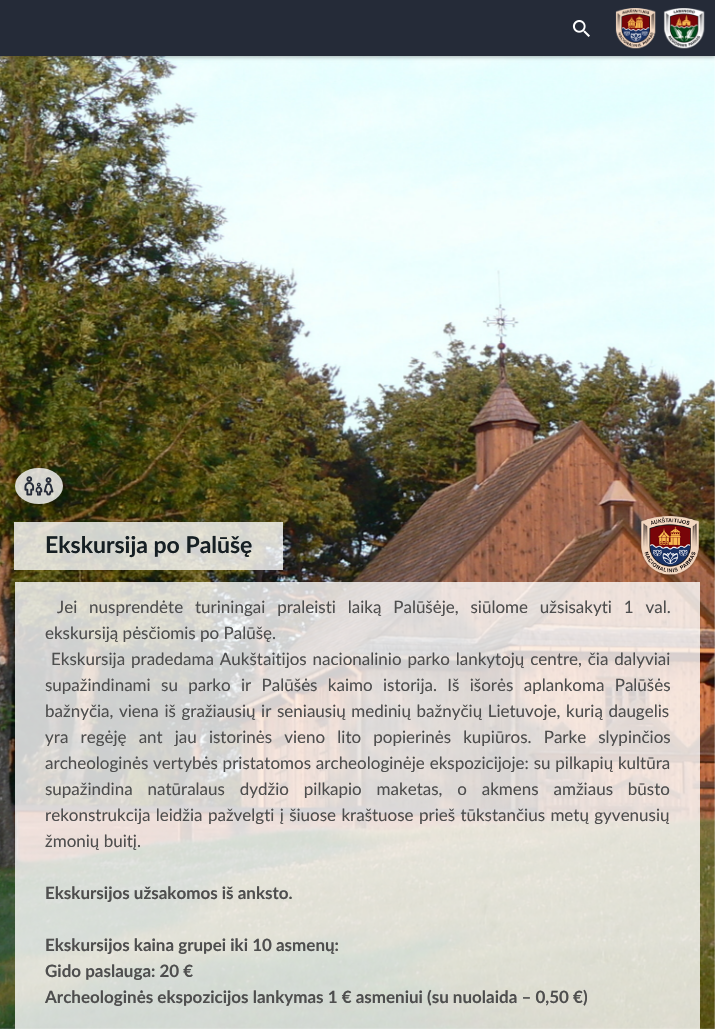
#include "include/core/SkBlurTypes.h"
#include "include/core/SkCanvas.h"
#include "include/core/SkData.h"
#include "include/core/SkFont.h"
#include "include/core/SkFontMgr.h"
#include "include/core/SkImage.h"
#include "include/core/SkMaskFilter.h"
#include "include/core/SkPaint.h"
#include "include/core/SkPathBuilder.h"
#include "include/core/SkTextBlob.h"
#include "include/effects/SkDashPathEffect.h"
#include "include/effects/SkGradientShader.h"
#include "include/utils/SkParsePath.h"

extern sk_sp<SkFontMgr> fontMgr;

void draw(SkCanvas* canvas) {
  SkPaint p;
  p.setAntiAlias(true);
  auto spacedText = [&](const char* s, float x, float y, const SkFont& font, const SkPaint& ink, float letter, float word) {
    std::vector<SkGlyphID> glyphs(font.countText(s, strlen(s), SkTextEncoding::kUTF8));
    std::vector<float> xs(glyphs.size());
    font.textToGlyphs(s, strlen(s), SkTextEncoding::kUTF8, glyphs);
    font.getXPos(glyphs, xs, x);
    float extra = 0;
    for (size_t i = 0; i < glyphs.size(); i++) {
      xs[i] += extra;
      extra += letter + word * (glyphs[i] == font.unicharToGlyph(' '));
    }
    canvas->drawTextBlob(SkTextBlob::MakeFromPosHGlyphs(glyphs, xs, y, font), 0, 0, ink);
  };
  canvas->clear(SK_ColorWHITE);
  canvas->drawImageRect(SkImages::DeferredFromEncodedData(SkData::MakeFromFileName("images/3.png")), SkRect::MakeLTRB(0, 56, 715, 1029), SkSamplingOptions());
  p.setColor(SkColorSetARGB(77, 0, 0, 0));
  p.setMaskFilter(SkMaskFilter::MakeBlur(kNormal_SkBlurStyle, 2));
  canvas->drawRect(SkRect::MakeLTRB(0, 1, 715, 57), p);
  p.setMaskFilter(nullptr);
  p.setColor(SkColorSetRGB(37, 43, 56));
  canvas->drawRect(SkRect::MakeLTRB(0, 0, 715, 56), p);
  canvas->drawImageRect(SkImages::DeferredFromEncodedData(SkData::MakeFromFileName("images/1.png")), SkRect::MakeLTRB(572, 20, 590, 37), SkSamplingOptions());
  canvas->drawImageRect(SkImages::DeferredFromEncodedData(SkData::MakeFromFileName("images/2.png")), SkRect::MakeLTRB(615, 8, 705, 49), SkSamplingOptions());
  p.setColor(SkColorSetARGB(204, 255, 255, 255));
  canvas->drawOval(SkRect::MakeLTRB(15, 468, 63, 504), p);
  canvas->drawImageRect(SkImages::DeferredFromEncodedData(SkData::MakeFromFileName("images/4.png")), SkRect::MakeLTRB(24, 476, 54, 496), SkSamplingOptions());
  canvas->drawRect(SkRect::MakeLTRB(14, 522, 45, 570), p);
  canvas->drawRect(SkRect::MakeLTRB(252, 522, 283, 570), p);
  canvas->drawRect(SkRect::MakeLTRB(45, 522, 252, 570), p);
  canvas->drawImageRect(SkImages::DeferredFromEncodedData(SkData::MakeFromFileName("images/5.png")), SkRect::MakeLTRB(641, 516, 699, 576), SkSamplingOptions());
  canvas->drawRect(SkRect::MakeLTRB(15, 582, 700, 1029), p);
  SkFont font1(fontMgr->matchFamilyStyle("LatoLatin", SkFontStyle::Bold()), 23);
  font1.setSubpixel(true);
  p.setColor(SkColorSetRGB(22, 31, 35));
  canvas->drawString("Ekskursija po Palūšę", 45, 553, font1, p);
  SkFont font2(fontMgr->matchFamilyStyle("LatoLatin", SkFontStyle::Normal()), 17);
  font2.setSubpixel(true);
  p.setColor(SkColorSetRGB(78, 78, 78));
  spacedText("Jei nusprendėte turiningai praleisti laiką Palūšėje, siūlome užsisakyti 1 val.", 57, 613, font2, p, 0, 7.5f);
  canvas->drawString("ekskursiją pėsčiomis po Palūšę.", 45, 639, font2, p);
  spacedText("Ekskursija pradedama Aukštaitijos nacionalinio parko lankytojų centre, čia dalyviai", 51, 665, font2, p, 0, 1.5f);
  spacedText("supažindinami su parko ir Palūšės kaimo istorija. Iš išorės aplankoma Palūšės", 45, 691, font2, p, 0, 6);
  spacedText("bažnyčia, viena iš gražiausių ir seniausių medinių bažnyčių Lietuvoje, kurią daugelis", 45, 717, font2, p, 0, 1.25f);
  spacedText("yra regėję ant jau istorinės vieno lito popierinės kupiūros. Parke slypinčios", 45, 743, font2, p, 0, 7.75f);
  spacedText("archeologinės vertybės pristatomos archeologinėje ekspozicijoje: su pilkapių kultūra", 45, 769, font2, p, 0, 0.5f);
  spacedText("supažindina natūralaus dydžio pilkapio maketas, o akmens amžiaus būsto", 45, 795, font2, p, 0, 10.5f);
  spacedText("rekonstrukcija leidžia pažvelgti į šiuose kraštuose prieš tūkstančius metų gyvenusių", 45, 821, font2, p, 0, 1);
  canvas->drawString("žmonių buitį.", 45, 847, font2, p);
  SkFont font3(fontMgr->matchFamilyStyle("LatoLatin", SkFontStyle::Bold()), 17);
  font3.setSubpixel(true);
  canvas->drawString("Ekskursijos užsakomos iš anksto.", 45, 899, font3, p);
  canvas->drawString("Ekskursijos kaina grupei iki 10 asmenų:", 45, 951, font3, p);
  canvas->drawString("Gido paslauga: 20 €", 45, 977, font3, p);
  canvas->drawString("Archeologinės ekspozicijos lankymas 1 € asmeniui (su nuolaida – 0,50 €)", 45, 1003, font3, p);
}
